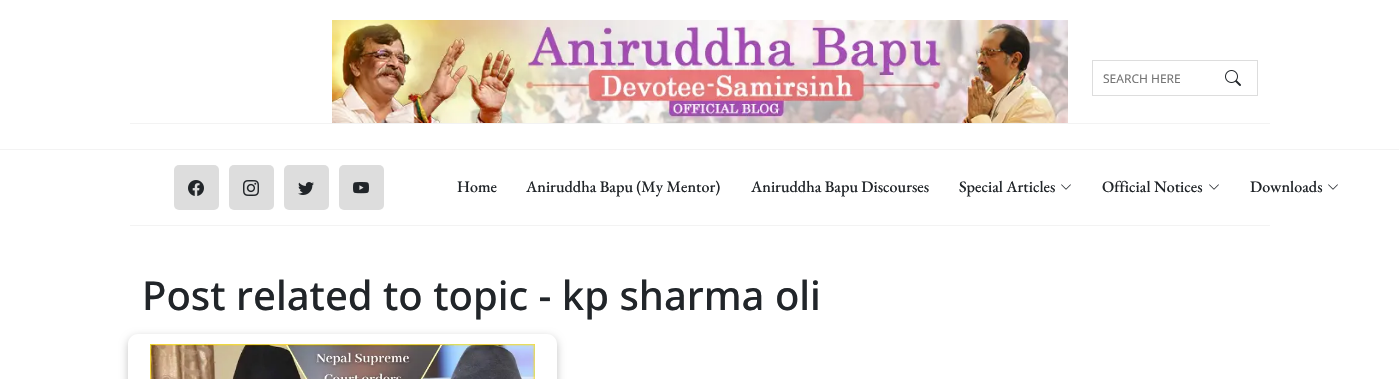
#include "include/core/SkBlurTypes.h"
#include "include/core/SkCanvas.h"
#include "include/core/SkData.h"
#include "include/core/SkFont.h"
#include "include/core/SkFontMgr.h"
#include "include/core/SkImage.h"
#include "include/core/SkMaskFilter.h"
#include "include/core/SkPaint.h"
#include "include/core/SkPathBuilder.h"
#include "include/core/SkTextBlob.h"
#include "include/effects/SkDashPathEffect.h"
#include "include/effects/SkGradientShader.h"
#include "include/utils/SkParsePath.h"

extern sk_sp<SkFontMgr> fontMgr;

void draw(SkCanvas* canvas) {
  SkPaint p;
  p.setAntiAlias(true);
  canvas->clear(SK_ColorWHITE);
  p.setColor(SkColorSetRGB(243, 243, 243));
  canvas->drawRect(SkRect::MakeLTRB(0, 149, 1399, 150), p);
  canvas->drawRect(SkRect::MakeLTRB(130, 123, 1270, 124), p);
  canvas->drawImageRect(SkImages::DeferredFromEncodedData(SkData::MakeFromFileName("images/1.png")), SkRect::MakeLTRB(332, 20, 1068, 123), SkSamplingOptions());
  p.setStyle(SkPaint::kStroke_Style);
  p.setStrokeWidth(1);
  p.setColor(SkColorSetRGB(221, 221, 221));
  canvas->drawRect(SkRect::MakeLTRB(1092.5f, 60.5f, 1257.5f, 95.5f), p);
  canvas->drawImageRect(SkImages::DeferredFromEncodedData(SkData::MakeFromFileName("images/2.png")), SkRect::MakeLTRB(1225, 70, 1241, 86), SkSamplingOptions());
  p.setStyle(SkPaint::kFill_Style);
  p.setColor(SkColorSetRGB(243, 243, 243));
  canvas->drawRect(SkRect::MakeLTRB(130, 225, 1270, 226), p);
  p.setColor(SkColorSetRGB(221, 221, 221));
  canvas->drawRoundRect(SkRect::MakeLTRB(174, 165, 219, 210), 5, 5, p);
  canvas->drawImageRect(SkImages::DeferredFromEncodedData(SkData::MakeFromFileName("images/3.png")), SkRect::MakeLTRB(188, 180, 204, 196), SkSamplingOptions());
  canvas->drawRoundRect(SkRect::MakeLTRB(229, 165, 274, 210), 5, 5, p);
  canvas->drawImageRect(SkImages::DeferredFromEncodedData(SkData::MakeFromFileName("images/4.png")), SkRect::MakeLTRB(243, 180, 259, 196), SkSamplingOptions());
  canvas->drawRoundRect(SkRect::MakeLTRB(284, 165, 329, 210), 5, 5, p);
  canvas->drawImageRect(SkImages::DeferredFromEncodedData(SkData::MakeFromFileName("images/5.png")), SkRect::MakeLTRB(298, 182, 314, 195), SkSamplingOptions());
  canvas->drawRoundRect(SkRect::MakeLTRB(339, 165, 384, 210), 5, 5, p);
  canvas->drawImageRect(SkImages::DeferredFromEncodedData(SkData::MakeFromFileName("images/6.png")), SkRect::MakeLTRB(353, 182, 369, 194), SkSamplingOptions());
  canvas->drawImageRect(SkImages::DeferredFromEncodedData(SkData::MakeFromFileName("images/7.png")), SkRect::MakeLTRB(1061, 184, 1071, 190), SkSamplingOptions());
  canvas->drawImageRect(SkImages::DeferredFromEncodedData(SkData::MakeFromFileName("images/7.png")), SkRect::MakeLTRB(1209, 184, 1219, 190), SkSamplingOptions());
  canvas->drawImageRect(SkImages::DeferredFromEncodedData(SkData::MakeFromFileName("images/7.png")), SkRect::MakeLTRB(1328, 184, 1338, 190), SkSamplingOptions());
  canvas->save();
  canvas->clipPath(SkPathBuilder(SkPathFillType::kEvenOdd).moveTo(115, 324).lineTo(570, 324).lineTo(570, 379).lineTo(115, 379).close().moveTo(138, 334).lineTo(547, 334).cubicTo(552.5f, 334, 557, 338.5f, 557, 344).lineTo(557, 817).cubicTo(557, 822.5f, 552.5f, 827, 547, 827).lineTo(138, 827).cubicTo(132.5f, 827, 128, 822.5f, 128, 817).lineTo(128, 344).cubicTo(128, 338.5f, 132.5f, 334, 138, 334).close().detach(), true);
  p.setColor(SkColorSetARGB(61, 0, 0, 0));
  p.setMaskFilter(SkMaskFilter::MakeBlur(kNormal_SkBlurStyle, 4));
  canvas->drawRoundRect(SkRect::MakeLTRB(128, 337, 557, 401), 10, 10, p);
  p.setMaskFilter(nullptr);
  canvas->restore();
  canvas->drawImageRect(SkImages::DeferredFromEncodedData(SkData::MakeFromFileName("images/8.png")), SkRect::MakeLTRB(150, 344, 535, 379), SkSamplingOptions());
  SkFont font1(fontMgr->matchFamilyStyle("Noto Sans", SkFontStyle::Normal()), 12);
  font1.setSubpixel(true);
  p.setColor(SkColorSetRGB(117, 117, 117));
  canvas->drawString("SEARCH HERE", 1103, 83, font1, p);
  SkFont font2(fontMgr->matchFamilyStyle("EB Garamond", SkFontStyle(500, SkFontStyle::kNormal_Width, SkFontStyle::kUpright_Slant)), 16);
  font2.setSubpixel(true);
  p.setColor(SkColorSetRGB(33, 37, 41));
  canvas->drawString("Home", 457, 192, font2, p);
  canvas->drawString("Aniruddha Bapu (My Mentor)", 526, 192, font2, p);
  canvas->drawString("Aniruddha Bapu Discourses", 751, 192, font2, p);
  canvas->drawString("Special Articles", 959, 192, font2, p);
  canvas->drawString("Official Notices", 1102, 192, font2, p);
  canvas->drawString("Downloads", 1250, 192, font2, p);
  SkFont font3(fontMgr->matchFamilyStyle("Noto Sans", SkFontStyle(500, SkFontStyle::kNormal_Width, SkFontStyle::kUpright_Slant)), 40);
  font3.setSubpixel(true);
  canvas->drawString("Post related to topic - kp sharma oli", 142, 310, font3, p);
}
